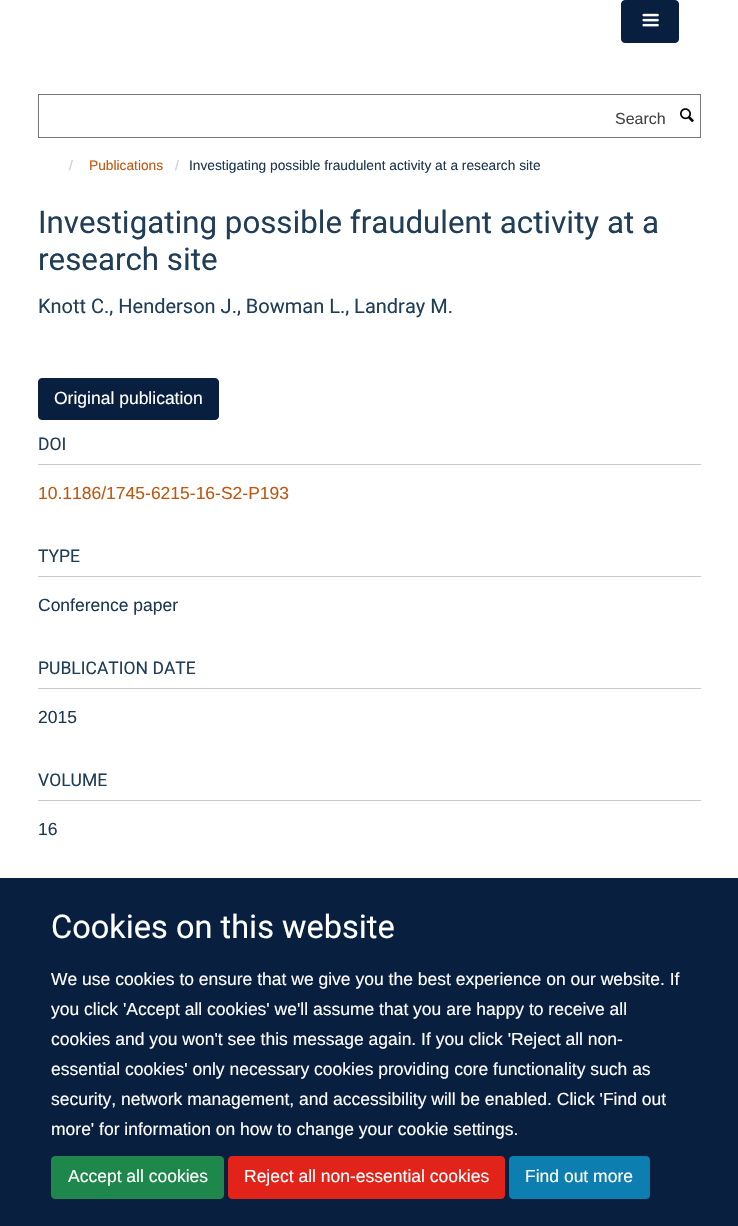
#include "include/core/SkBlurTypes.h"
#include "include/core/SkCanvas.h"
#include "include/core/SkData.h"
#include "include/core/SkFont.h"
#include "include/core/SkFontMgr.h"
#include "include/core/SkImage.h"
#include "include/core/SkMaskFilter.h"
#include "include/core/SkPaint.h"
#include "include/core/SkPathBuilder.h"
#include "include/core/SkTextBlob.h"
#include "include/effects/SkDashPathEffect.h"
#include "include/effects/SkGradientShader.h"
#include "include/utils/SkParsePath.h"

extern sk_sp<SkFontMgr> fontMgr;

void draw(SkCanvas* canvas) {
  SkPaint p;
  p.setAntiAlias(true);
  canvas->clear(SK_ColorWHITE);
  p.setColor(SkColorSetRGB(9, 31, 64));
  canvas->drawRoundRect(SkRect::MakeLTRB(621.5f, 0.5f, 678.5f, 42.5f), 3.5f, 3.5f, p);
  p.setStyle(SkPaint::kStroke_Style);
  p.setStrokeWidth(1);
  canvas->drawRoundRect(SkRect::MakeLTRB(621.5f, 0.5f, 678.5f, 42.5f), 3.5f, 3.5f, p);
  canvas->drawImageRect(SkImages::DeferredFromEncodedData(SkData::MakeFromFileName("images/1.png")), SkRect::MakeLTRB(642, 13, 659, 27), SkSamplingOptions());
  p.setColor(SkColorSetRGB(119, 119, 119));
  canvas->drawRect(SkRect::MakeLTRB(38.5f, 94.5f, 700.5f, 137.5f), p);
  canvas->drawImageRect(SkImages::DeferredFromEncodedData(SkData::MakeFromFileName("images/2.png")), SkRect::MakeLTRB(680, 108, 694, 122), SkSamplingOptions());
  p.setStyle(SkPaint::kFill_Style);
  p.setColor(SkColorSetRGB(9, 31, 64));
  canvas->drawRoundRect(SkRect::MakeLTRB(38.5f, 378.5f, 218.5f, 419.5f), 3.5f, 3.5f, p);
  p.setStyle(SkPaint::kStroke_Style);
  canvas->drawRoundRect(SkRect::MakeLTRB(38.5f, 378.5f, 218.5f, 419.5f), 3.5f, 3.5f, p);
  p.setStyle(SkPaint::kFill_Style);
  p.setColor(SkColorSetRGB(198, 202, 207));
  canvas->drawRect(SkRect::MakeLTRB(38, 464, 701, 465), p);
  canvas->drawRect(SkRect::MakeLTRB(38, 576, 701, 577), p);
  canvas->drawRect(SkRect::MakeLTRB(38, 688, 701, 689), p);
  canvas->drawRect(SkRect::MakeLTRB(38, 800, 701, 801), p);
  p.setColor(SkColorSetRGB(9, 31, 64));
  canvas->drawRect(SkRect::MakeLTRB(0, 878, 738, 1226), p);
  p.setColor(SkColorSetRGB(30, 135, 75));
  canvas->drawRoundRect(SkRect::MakeLTRB(51.5f, 1156.5f, 223.5f, 1198.5f), 3.5f, 3.5f, p);
  p.setStyle(SkPaint::kStroke_Style);
  canvas->drawRoundRect(SkRect::MakeLTRB(51.5f, 1156.5f, 223.5f, 1198.5f), 3.5f, 3.5f, p);
  p.setStyle(SkPaint::kFill_Style);
  p.setColor(SkColorSetRGB(226, 35, 26));
  canvas->drawRoundRect(SkRect::MakeLTRB(228.5f, 1156.5f, 504.5f, 1198.5f), 3.5f, 3.5f, p);
  p.setStyle(SkPaint::kStroke_Style);
  canvas->drawRoundRect(SkRect::MakeLTRB(228.5f, 1156.5f, 504.5f, 1198.5f), 3.5f, 3.5f, p);
  p.setStyle(SkPaint::kFill_Style);
  p.setColor(SkColorSetRGB(13, 126, 176));
  canvas->drawRoundRect(SkRect::MakeLTRB(509.5f, 1156.5f, 649.5f, 1198.5f), 3.5f, 3.5f, p);
  p.setStyle(SkPaint::kStroke_Style);
  canvas->drawRoundRect(SkRect::MakeLTRB(509.5f, 1156.5f, 649.5f, 1198.5f), 3.5f, 3.5f, p);
  SkFont font1(fontMgr->matchFamilyStyle("Liberation Sans", SkFontStyle::Normal()), 16);
  font1.setSubpixel(true);
  p.setStyle(SkPaint::kFill_Style);
  p.setColor(SkColorSetRGB(68, 68, 68));
  canvas->drawString("Search", 615, 124, font1, p);
  SkFont font2(fontMgr->matchFamilyStyle("Liberation Sans", SkFontStyle::Normal()), 13.75f);
  font2.setSubpixel(true);
  p.setColor(SkColorSetRGB(204, 204, 204));
  canvas->drawString("/", 69, 170, font2, p);
  p.setColor(SkColorSetRGB(193, 87, 14));
  canvas->drawString("Publications", 89, 170, font2, p);
  p.setColor(SkColorSetRGB(204, 204, 204));
  canvas->drawString("/", 175, 170, font2, p);
  p.setColor(SkColorSetRGB(29, 56, 80));
  canvas->drawString("Investigating possible fraudulent activity at a research site", 189, 170, font2, p);
  SkFont font3(fontMgr->matchFamilyStyle("Heebo", SkFontStyle::Normal()), 31.25f);
  font3.setSubpixel(true);
  p.setColor(SkColorSetRGB(32, 62, 88));
  canvas->drawString("Investigating possible fraudulent activity at a", 38, 233, font3, p);
  canvas->drawString("research site", 38, 270, font3, p);
  SkFont font4(fontMgr->matchFamilyStyle("Heebo", SkFontStyle::Normal()), 20);
  font4.setSubpixel(true);
  canvas->drawString("Knott C., Henderson J., Bowman L., Landray M.", 38, 313, font4, p);
  SkFont font5(fontMgr->matchFamilyStyle("Liberation Sans", SkFontStyle::Normal()), 17.5f);
  font5.setSubpixel(true);
  p.setColor(SK_ColorWHITE);
  canvas->drawString("Original publication", 54, 404, font5, p);
  SkFont font6(fontMgr->matchFamilyStyle("Heebo", SkFontStyle::Normal()), 17.5f);
  font6.setSubpixel(true);
  p.setColor(SkColorSetRGB(32, 62, 88));
  canvas->drawString("DOI", 38, 450, font6, p);
  p.setColor(SkColorSetRGB(193, 87, 14));
  canvas->drawString("10.1186/1745-6215-16-S2-P193", 38, 499, font5, p);
  p.setColor(SkColorSetRGB(32, 62, 88));
  canvas->drawString("TYPE", 38, 562, font6, p);
  p.setColor(SkColorSetRGB(29, 56, 80));
  canvas->drawString("Conference paper", 38, 611, font5, p);
  p.setColor(SkColorSetRGB(32, 62, 88));
  canvas->drawString("PUBLICATION DATE", 38, 674, font6, p);
  p.setColor(SkColorSetRGB(29, 56, 80));
  canvas->drawString("2015", 38, 723, font5, p);
  p.setColor(SkColorSetRGB(32, 62, 88));
  canvas->drawString("VOLUME", 38, 786, font6, p);
  p.setColor(SkColorSetRGB(29, 56, 80));
  canvas->drawString("16", 38, 835, font5, p);
  SkFont font7(fontMgr->matchFamilyStyle("Heebo", SkFontStyle::Normal()), 32.5f);
  font7.setSubpixel(true);
  p.setColor(SK_ColorWHITE);
  canvas->drawString("Cookies on this website", 51, 938, font7, p);
  canvas->drawString("We use cookies to ensure that we give you the best experience on our website. If", 51, 985, font5, p);
  canvas->drawString("you click 'Accept all cookies' we'll assume that you are happy to receive all", 51, 1015, font5, p);
  canvas->drawString("cookies and you won't see this message again. If you click 'Reject all non-", 51, 1045, font5, p);
  canvas->drawString("essential cookies' only necessary cookies providing core functionality such as", 51, 1075, font5, p);
  canvas->drawString("security, network management, and accessibility will be enabled. Click 'Find out", 51, 1105, font5, p);
  canvas->drawString("more' for information on how to change your cookie settings.", 51, 1135, font5, p);
  canvas->drawString("Accept all cookies", 68, 1182, font5, p);
  canvas->drawString("Reject all non-essential cookies", 244, 1182, font5, p);
  canvas->drawString("Find out more", 525, 1182, font5, p);
}
